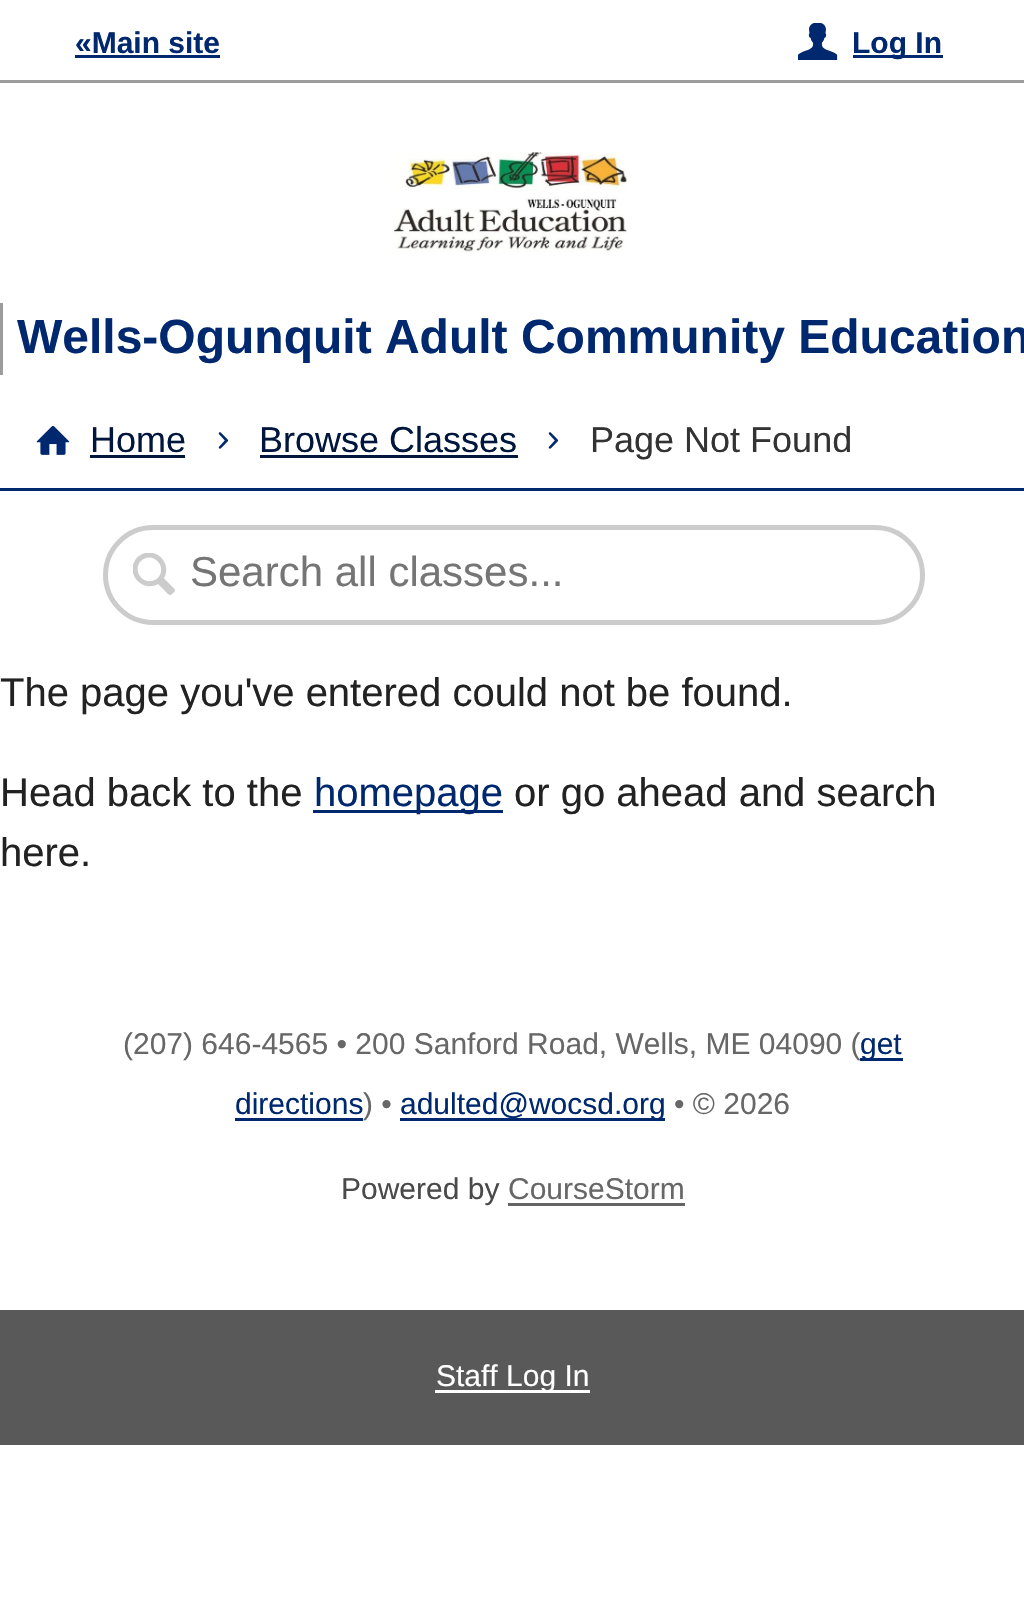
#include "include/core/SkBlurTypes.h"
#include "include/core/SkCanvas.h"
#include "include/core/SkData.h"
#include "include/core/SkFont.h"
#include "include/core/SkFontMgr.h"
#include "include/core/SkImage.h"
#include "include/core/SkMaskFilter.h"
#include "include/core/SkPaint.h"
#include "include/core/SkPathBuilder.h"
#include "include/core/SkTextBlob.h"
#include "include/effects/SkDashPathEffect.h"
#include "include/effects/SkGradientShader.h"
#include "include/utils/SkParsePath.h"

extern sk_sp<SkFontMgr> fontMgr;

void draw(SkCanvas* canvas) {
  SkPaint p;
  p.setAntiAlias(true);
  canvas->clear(SK_ColorWHITE);
  p.setColor(SkColorSetRGB(156, 156, 156));
  canvas->drawRect(SkRect::MakeLTRB(0, 80, 1024, 83), p);
  p.setColor(SkColorSetRGB(0, 40, 111));
  canvas->drawRect(SkRect::MakeLTRB(75, 55, 220, 58), p);
  canvas->drawImageRect(SkImages::DeferredFromEncodedData(SkData::MakeFromFileName("images/1.png")), SkRect::MakeLTRB(798, 23, 838, 60), SkSamplingOptions());
  canvas->drawRect(SkRect::MakeLTRB(853, 55, 943, 58), p);
  canvas->drawImageRect(SkImages::DeferredFromEncodedData(SkData::MakeFromFileName("images/2.png")), SkRect::MakeLTRB(392, 152, 627, 253), SkSamplingOptions());
  p.setColor(SkColorSetRGB(156, 156, 156));
  canvas->drawRect(SkRect::MakeLTRB(0, 303, 3, 375), p);
  p.setColor(SkColorSetRGB(0, 40, 111));
  canvas->drawRect(SkRect::MakeLTRB(0, 488, 1024, 491), p);
  canvas->drawImageRect(SkImages::DeferredFromEncodedData(SkData::MakeFromFileName("images/3.png")), SkRect::MakeLTRB(36, 426, 70, 455), SkSamplingOptions());
  p.setColor(SkColorSetRGB(0, 22, 60));
  canvas->drawRect(SkRect::MakeLTRB(90, 455, 185, 458), p);
  canvas->drawImageRect(SkImages::DeferredFromEncodedData(SkData::MakeFromFileName("images/4.png")), SkRect::MakeLTRB(218, 432, 229, 449), SkSamplingOptions());
  canvas->drawRect(SkRect::MakeLTRB(260, 455, 518, 458), p);
  canvas->drawImageRect(SkImages::DeferredFromEncodedData(SkData::MakeFromFileName("images/4.png")), SkRect::MakeLTRB(548, 432, 559, 449), SkSamplingOptions());
  p.setStyle(SkPaint::kStroke_Style);
  p.setStrokeWidth(5);
  p.setColor(SkColorSetRGB(204, 204, 204));
  canvas->drawRoundRect(SkRect::MakeLTRB(105.5f, 527.5f, 922.5f, 622.5f), 47.5f, 47.5f, p);
  canvas->drawImageRect(SkImages::DeferredFromEncodedData(SkData::MakeFromFileName("images/5.png")), SkRect::MakeLTRB(133, 553, 175, 595), SkSamplingOptions());
  p.setStyle(SkPaint::kFill_Style);
  p.setColor(SkColorSetRGB(0, 40, 111));
  canvas->drawRect(SkRect::MakeLTRB(313, 810, 503, 813), p);
  canvas->drawRect(SkRect::MakeLTRB(235, 1118, 363, 1121), p);
  canvas->drawRect(SkRect::MakeLTRB(400, 1118, 665, 1121), p);
  p.setColor(SkColorSetRGB(100, 100, 100));
  canvas->drawRect(SkRect::MakeLTRB(508, 1203, 685, 1206), p);
  p.setColor(SkColorSetRGB(89, 89, 89));
  canvas->drawRect(SkRect::MakeLTRB(0, 1310, 1024, 1445), p);
  p.setColor(SK_ColorWHITE);
  canvas->drawRect(SkRect::MakeLTRB(435, 1390, 590, 1393), p);
  SkFont font1(fontMgr->matchFamilyStyle("Liberation Sans", SkFontStyle::Bold()), 30);
  font1.setSubpixel(true);
  p.setColor(SkColorSetRGB(0, 40, 111));
  canvas->drawString("«Main site", 75, 53, font1, p);
  canvas->drawString("Log In", 852, 53, font1, p);
  SkFont font2(fontMgr->matchFamilyStyle("Liberation Sans", SkFontStyle::Bold()), 48);
  font2.setSubpixel(true);
  canvas->drawString("Wells-Ogunquit Adult Community Education", 17, 353, font2, p);
  SkFont font3(fontMgr->matchFamilyStyle("Liberation Sans", SkFontStyle::Normal()), 36);
  font3.setSubpixel(true);
  p.setColor(SkColorSetRGB(0, 22, 60));
  canvas->drawString("Home", 90, 452, font3, p);
  canvas->drawString("Browse Classes", 259, 452, font3, p);
  p.setColor(SkColorSetRGB(51, 51, 51));
  canvas->drawString("Page Not Found", 590, 452, font3, p);
  SkFont font4(fontMgr->matchFamilyStyle("Liberation Sans", SkFontStyle::Normal()), 42);
  font4.setSubpixel(true);
  p.setColor(SkColorSetRGB(117, 117, 117));
  canvas->drawString("Search all classes...", 190, 586, font4, p);
  SkFont font5(fontMgr->matchFamilyStyle("Liberation Sans", SkFontStyle::Normal()), 40);
  font5.setSubpixel(true);
  p.setColor(SkColorSetRGB(34, 34, 34));
  canvas->drawString("The page you've entered could not be found.", 0, 706, font5, p);
  canvas->drawString("Head back to the", 0, 806, font5, p);
  p.setColor(SkColorSetRGB(0, 40, 111));
  canvas->drawString("homepage", 314, 806, font5, p);
  p.setColor(SkColorSetRGB(34, 34, 34));
  canvas->drawString("or go ahead and search", 514, 806, font5, p);
  canvas->drawString("here.", 0, 866, font5, p);
  SkFont font6(fontMgr->matchFamilyStyle("Liberation Sans", SkFontStyle::Normal()), 30);
  font6.setSubpixel(true);
  p.setColor(SkColorSetRGB(103, 103, 103));
  canvas->drawString("(207) 646-4565 • 200 Sanford Road, Wells, ME 04090 (", 123, 1054, font6, p);
  p.setColor(SkColorSetRGB(0, 40, 111));
  canvas->drawRect(SkRect::MakeLTRB(860, 1058, 903, 1061), p);
  canvas->drawString("get", 860, 1054, font6, p);
  canvas->drawString("directions", 235, 1114, font6, p);
  p.setColor(SkColorSetRGB(103, 103, 103));
  canvas->drawString(") •", 363, 1114, font6, p);
  p.setColor(SkColorSetRGB(0, 40, 111));
  canvas->drawString("adulted@wocsd.org", 400, 1114, font6, p);
  p.setColor(SkColorSetRGB(103, 103, 103));
  canvas->drawString("• © 2026", 674, 1114, font6, p);
  p.setColor(SkColorSetRGB(74, 74, 74));
  canvas->drawString("Powered by", 341, 1199, font6, p);
  p.setColor(SkColorSetRGB(103, 103, 103));
  canvas->drawString("CourseStorm", 508, 1199, font6, p);
  p.setColor(SK_ColorWHITE);
  canvas->drawString("Staff Log In", 436, 1386, font6, p);
}
